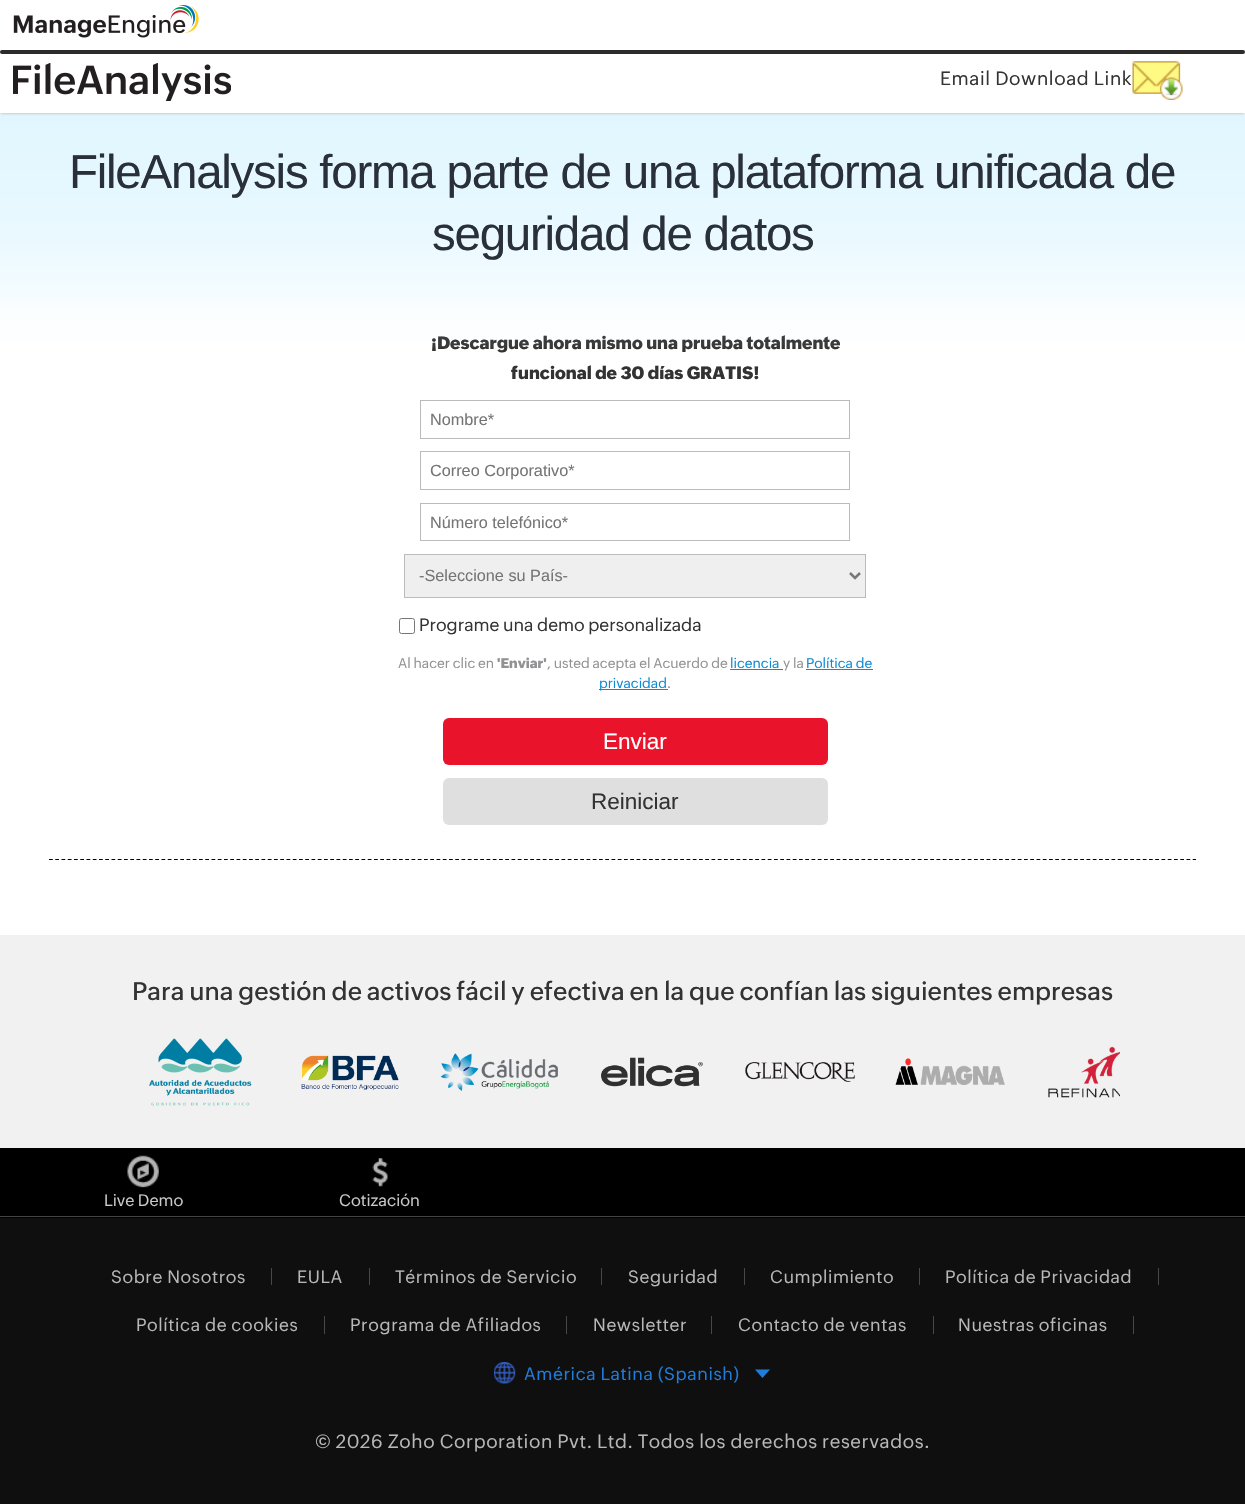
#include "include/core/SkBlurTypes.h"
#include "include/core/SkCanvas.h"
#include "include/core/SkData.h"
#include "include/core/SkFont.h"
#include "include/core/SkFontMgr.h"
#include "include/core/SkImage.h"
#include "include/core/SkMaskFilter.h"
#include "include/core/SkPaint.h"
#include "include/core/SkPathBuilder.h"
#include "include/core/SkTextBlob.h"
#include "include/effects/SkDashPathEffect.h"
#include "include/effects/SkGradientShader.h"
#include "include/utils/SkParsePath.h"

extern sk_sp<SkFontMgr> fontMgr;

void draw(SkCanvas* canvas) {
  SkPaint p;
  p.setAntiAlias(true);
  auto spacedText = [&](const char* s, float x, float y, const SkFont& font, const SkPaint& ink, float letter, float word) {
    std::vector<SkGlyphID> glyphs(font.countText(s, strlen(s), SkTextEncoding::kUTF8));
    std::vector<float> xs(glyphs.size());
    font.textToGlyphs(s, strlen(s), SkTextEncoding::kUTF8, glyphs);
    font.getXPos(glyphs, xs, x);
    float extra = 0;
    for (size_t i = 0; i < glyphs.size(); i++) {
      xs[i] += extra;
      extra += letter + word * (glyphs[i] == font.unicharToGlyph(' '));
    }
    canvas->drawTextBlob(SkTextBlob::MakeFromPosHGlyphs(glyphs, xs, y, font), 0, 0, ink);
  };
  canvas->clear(SK_ColorWHITE);
  canvas->drawImageRect(SkImages::DeferredFromEncodedData(SkData::MakeFromFileName("images/1.png")), SkRect::MakeLTRB(13, 5, 199, 38), SkSamplingOptions());
  p.setStyle(SkPaint::kStroke_Style);
  p.setStrokeWidth(1.2f);
  p.setColor(SK_ColorBLACK);
  p.setPathEffect(SkDashPathEffect::Make({{3.75f, 2.5f}}, 0));
  canvas->drawPath(SkPathBuilder().moveTo(49, 859.5f).lineTo(1196, 859.5f).detach(), p);
  p.setPathEffect(nullptr);
  p.setStrokeWidth(1);
  p.setColor(SkColorSetRGB(187, 187, 187));
  canvas->drawRect(SkRect::MakeLTRB(420.5f, 400.5f, 849.5f, 438.5f), p);
  canvas->drawRect(SkRect::MakeLTRB(420.5f, 451.5f, 849.5f, 489.5f), p);
  canvas->drawRect(SkRect::MakeLTRB(420.5f, 503.5f, 849.5f, 540.5f), p);
  p.setStyle(SkPaint::kFill_Style);
  p.setColor(SkColorSetRGB(239, 239, 239));
  canvas->drawRect(SkRect::MakeLTRB(404.5f, 554.5f, 865.5f, 597.5f), p);
  p.setStyle(SkPaint::kStroke_Style);
  p.setColor(SkColorSetRGB(187, 187, 187));
  canvas->drawRect(SkRect::MakeLTRB(404.5f, 554.5f, 865.5f, 597.5f), p);
  p.setStrokeWidth(2.5f);
  p.setColor(SkColorSetRGB(119, 119, 119));
  canvas->drawPath(SkPathBuilder().moveTo(850, 573).lineTo(855, 578).lineTo(860, 573).detach(), p);
  p.setStrokeWidth(1);
  p.setColor(SkColorSetRGB(118, 118, 118));
  canvas->drawRoundRect(SkRect::MakeLTRB(399.5f, 618.5f, 414.5f, 633.5f), 2, 2, p);
  p.setStyle(SkPaint::kFill_Style);
  p.setColor(SkColorSetRGB(13, 140, 210));
  canvas->drawRect(SkRect::MakeLTRB(730, 669, 783, 670), p);
  canvas->drawRect(SkRect::MakeLTRB(806, 669, 873, 670), p);
  canvas->drawRect(SkRect::MakeLTRB(599, 689, 668, 690), p);
  p.setColor(SkColorSetRGB(233, 20, 43));
  canvas->drawRoundRect(SkRect::MakeLTRB(443, 718, 828, 765), 6, 6, p);
  p.setColor(SkColorSetRGB(223, 223, 224));
  canvas->drawRoundRect(SkRect::MakeLTRB(443, 778, 828, 825), 6, 6, p);
  p.setColor(SkColorSetRGB(241, 241, 241));
  canvas->drawRect(SkRect::MakeLTRB(0, 935, 1245, 1148), p);
  canvas->drawImageRect(SkImages::DeferredFromEncodedData(SkData::MakeFromFileName("images/4.png")), SkRect::MakeLTRB(149, 1038, 252, 1106), SkSamplingOptions());
  canvas->drawImageRect(SkImages::DeferredFromEncodedData(SkData::MakeFromFileName("images/5.png")), SkRect::MakeLTRB(301, 1055, 399, 1090), SkSamplingOptions());
  canvas->drawImageRect(SkImages::DeferredFromEncodedData(SkData::MakeFromFileName("images/6.png")), SkRect::MakeLTRB(440, 1053, 558, 1091), SkSamplingOptions());
  canvas->drawImageRect(SkImages::DeferredFromEncodedData(SkData::MakeFromFileName("images/7.png")), SkRect::MakeLTRB(601, 1057, 703, 1087), SkSamplingOptions());
  canvas->drawImageRect(SkImages::DeferredFromEncodedData(SkData::MakeFromFileName("images/8.png")), SkRect::MakeLTRB(745, 1062, 855, 1082), SkSamplingOptions());
  canvas->drawImageRect(SkImages::DeferredFromEncodedData(SkData::MakeFromFileName("images/9.png")), SkRect::MakeLTRB(895, 1058, 1005, 1085), SkSamplingOptions());
  canvas->drawImageRect(SkImages::DeferredFromEncodedData(SkData::MakeFromFileName("images/10.png")), SkRect::MakeLTRB(1048, 1046, 1120, 1098), SkSamplingOptions());
  p.setColor(SK_ColorBLACK);
  canvas->drawRect(SkRect::MakeLTRB(0, 1148, 1245, 1218), p);
  canvas->drawImageRect(SkImages::DeferredFromEncodedData(SkData::MakeFromFileName("images/11.png")), SkRect::MakeLTRB(127, 1155, 159, 1188), SkSamplingOptions());
  canvas->drawImageRect(SkImages::DeferredFromEncodedData(SkData::MakeFromFileName("images/12.png")), SkRect::MakeLTRB(372, 1158, 388, 1187), SkSamplingOptions());
  p.setColor(SkColorSetRGB(68, 68, 68));
  canvas->drawRect(SkRect::MakeLTRB(0, 1216, 1245, 1217), p);
  p.setColor(SkColorSetRGB(15, 15, 15));
  canvas->drawRect(SkRect::MakeLTRB(0, 1218, 1245, 1504), p);
  p.setColor(SkColorSetRGB(71, 72, 74));
  canvas->drawRect(SkRect::MakeLTRB(271, 1268, 272, 1285), p);
  canvas->drawRect(SkRect::MakeLTRB(369, 1268, 370, 1285), p);
  canvas->drawRect(SkRect::MakeLTRB(601, 1268, 602, 1285), p);
  canvas->drawRect(SkRect::MakeLTRB(744, 1268, 745, 1285), p);
  canvas->drawRect(SkRect::MakeLTRB(919, 1268, 920, 1285), p);
  canvas->drawRect(SkRect::MakeLTRB(1158, 1268, 1159, 1285), p);
  canvas->drawRect(SkRect::MakeLTRB(324, 1316, 325, 1334), p);
  canvas->drawRect(SkRect::MakeLTRB(566, 1316, 567, 1334), p);
  canvas->drawRect(SkRect::MakeLTRB(711, 1316, 712, 1334), p);
  canvas->drawRect(SkRect::MakeLTRB(933, 1316, 934, 1334), p);
  canvas->drawRect(SkRect::MakeLTRB(1133, 1316, 1134, 1334), p);
  canvas->drawImageRect(SkImages::DeferredFromEncodedData(SkData::MakeFromFileName("images/13.png")), SkRect::MakeLTRB(494, 1362, 516, 1384), SkSamplingOptions());
  p.setColor(SkColorSetRGB(32, 125, 219));
  canvas->drawPath(SkPathBuilder().moveTo(755, 1369.5f).lineTo(770, 1369.5f).lineTo(762.5f, 1378).close().detach(), p);
  SkFont font1(fontMgr->matchFamilyStyle("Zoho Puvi", SkFontStyle(800, SkFontStyle::kNormal_Width, SkFontStyle::kUpright_Slant)), 17.5f);
  font1.setSubpixel(true);
  p.setColor(SkColorSetRGB(51, 51, 51));
  canvas->drawString("¡Descargue ahora mismo una prueba totalmente", 431, 349, font1, p);
  {
    const SkColor colors[] = {SkColorSetARGB(201, 213, 243, 255), SkColorSetARGB(135, 213, 243, 255), SkColorSetARGB(64, 213, 243, 255), SkColorSetARGB(28, 213, 243, 255), SkColorSetARGB(8, 213, 243, 255), SkColorSetARGB(3, 213, 243, 255)};
    const float stops[] = {0, 0.55f, 0.79f, 0.84f, 0.97f, 1};
    const SkPoint ends[] = {{623, 77}, {623, 353}};
    p.setShader(SkGradientShader::MakeLinear(ends, colors, stops, 6, SkTileMode::kClamp));
    p.setAlpha(255);
  }
  canvas->drawRect(SkRect::MakeLTRB(0, 113, 1245, 348), p);
  p.setShader(nullptr);
  p.setColor(SkColorSetRGB(204, 204, 204));
  p.setMaskFilter(SkMaskFilter::MakeBlur(kNormal_SkBlurStyle, 1));
  canvas->drawRect(SkRect::MakeLTRB(1, 54, 1244, 114), p);
  p.setMaskFilter(nullptr);
  p.setColor(SK_ColorWHITE);
  canvas->drawRect(SkRect::MakeLTRB(0, 52, 1245, 113), p);
  p.setColor(SkColorSetRGB(43, 43, 43));
  canvas->drawRoundRect(SkRect::MakeLTRB(0, 50, 1245, 54), 2, 2, p);
  canvas->drawImageRect(SkImages::DeferredFromEncodedData(SkData::MakeFromFileName("images/2.png")), SkRect::MakeLTRB(13, 63, 231, 101), SkSamplingOptions());
  canvas->drawImageRect(SkImages::DeferredFromEncodedData(SkData::MakeFromFileName("images/3.png")), SkRect::MakeLTRB(1132, 61, 1183, 100), SkSamplingOptions());
  SkFont font2(fontMgr->matchFamilyStyle("Zoho Puvi", SkFontStyle::Normal()), 18.75f);
  font2.setSubpixel(true);
  p.setColor(SkColorSetRGB(51, 51, 51));
  spacedText("Email Download Link", 940, 85, font2, p, 0.62f, 0);
  SkFont font3(fontMgr->matchFamilyStyle("Liberation Sans", SkFontStyle::Normal()), 47.5f);
  font3.setSubpixel(true);
  p.setColor(SkColorSetRGB(41, 48, 57));
  spacedText("seguridad de datos", 432, 250, font3, p, -1.25f, 0);
  spacedText("FileAnalysis forma parte de una plataforma unificada de", 69, 188, font3, p, -1.25f, 0);
  p.setColor(SkColorSetRGB(51, 51, 51));
  canvas->drawString("funcional de 30 días GRATIS!", 511, 379, font1, p);
  SkFont font4(fontMgr->matchFamilyStyle("Liberation Sans", SkFontStyle::Normal()), 16.25f);
  font4.setSubpixel(true);
  p.setColor(SkColorSetRGB(117, 117, 117));
  canvas->drawString("Nombre*", 430, 425, font4, p);
  canvas->drawString("Correo Corporativo*", 430, 476, font4, p);
  canvas->drawString("Número telefónico*", 430, 528, font4, p);
  canvas->drawString("-Seleccione su País-", 419, 581, font4, p);
  SkFont font5(fontMgr->matchFamilyStyle("Zoho Puvi", SkFontStyle::Normal()), 17.5f);
  font5.setSubpixel(true);
  p.setColor(SkColorSetRGB(51, 51, 51));
  canvas->drawString("Programe una demo personalizada", 419, 631, font5, p);
  SkFont font6(fontMgr->matchFamilyStyle("Zoho Puvi", SkFontStyle::Normal()), 13.75f);
  font6.setSubpixel(true);
  p.setColor(SkColorSetRGB(146, 146, 149));
  canvas->drawString("Al hacer clic en", 398, 668, font6, p);
  SkFont font7(fontMgr->matchFamilyStyle("Zoho Puvi", SkFontStyle(800, SkFontStyle::kNormal_Width, SkFontStyle::kUpright_Slant)), 13.75f);
  font7.setSubpixel(true);
  canvas->drawString("'Enviar'", 497, 668, font7, p);
  canvas->drawString(", usted acepta el Acuerdo de", 547, 668, font6, p);
  p.setColor(SkColorSetRGB(13, 140, 210));
  canvas->drawString("licencia", 730, 668, font6, p);
  p.setColor(SkColorSetRGB(146, 146, 149));
  canvas->drawString("y la", 783, 668, font6, p);
  p.setColor(SkColorSetRGB(13, 140, 210));
  canvas->drawString("Política de", 806, 668, font6, p);
  canvas->drawString("privacidad", 599, 688, font6, p);
  p.setColor(SkColorSetRGB(146, 146, 149));
  canvas->drawString(".", 667, 688, font6, p);
  SkFont font8(fontMgr->matchFamilyStyle("Liberation Sans", SkFontStyle::Normal()), 22.5f);
  font8.setSubpixel(true);
  p.setColor(SK_ColorWHITE);
  canvas->drawString("Enviar", 603, 749, font8, p);
  p.setColor(SkColorSetRGB(51, 51, 51));
  canvas->drawString("Reiniciar", 591, 809, font8, p);
  SkFont font9(fontMgr->matchFamilyStyle("Zoho Puvi", SkFontStyle(500, SkFontStyle::kNormal_Width, SkFontStyle::kUpright_Slant)), 25);
  font9.setSubpixel(true);
  canvas->drawString("Para una gestión de activos fácil y efectiva en la que confían las siguientes empresas", 132, 1000, font9, p);
  SkFont font10(fontMgr->matchFamilyStyle("Zoho Puvi", SkFontStyle::Normal()), 16.25f);
  font10.setSubpixel(true);
  p.setColor(SkColorSetRGB(201, 201, 201));
  canvas->drawString("Live Demo", 104, 1206, font10, p);
  canvas->drawString("Cotización", 339, 1206, font10, p);
  p.setColor(SkColorSetRGB(184, 184, 184));
  spacedText("Sobre Nosotros", 111, 1283, font5, p, 0.62f, 0);
  spacedText("EULA", 297, 1283, font5, p, 0.62f, 0);
  spacedText("Términos de Servicio", 395, 1283, font5, p, 0.62f, 0);
  spacedText("Seguridad", 628, 1283, font5, p, 0.62f, 0);
  spacedText("Cumplimiento", 770, 1283, font5, p, 0.62f, 0);
  spacedText("Política de Privacidad", 945, 1283, font5, p, 0.62f, 0);
  spacedText("Política de cookies", 136, 1331, font5, p, 0.62f, 0);
  spacedText("Programa de Afiliados", 350, 1331, font5, p, 0.62f, 0);
  spacedText("Newsletter", 593, 1331, font5, p, 0.62f, 0);
  spacedText("Contacto de ventas", 738, 1331, font5, p, 0.62f, 0);
  spacedText("Nuestras oficinas", 958, 1331, font5, p, 0.62f, 0);
  p.setColor(SkColorSetRGB(32, 125, 219));
  spacedText("América Latina (Spanish)", 524, 1380, font5, p, 0.62f, 0);
  p.setColor(SkColorSetRGB(184, 184, 184));
  spacedText("© 2026 Zoho Corporation Pvt. Ltd. Todos los derechos reservados.", 315, 1448, font2, p, 0.62f, 0);
}
